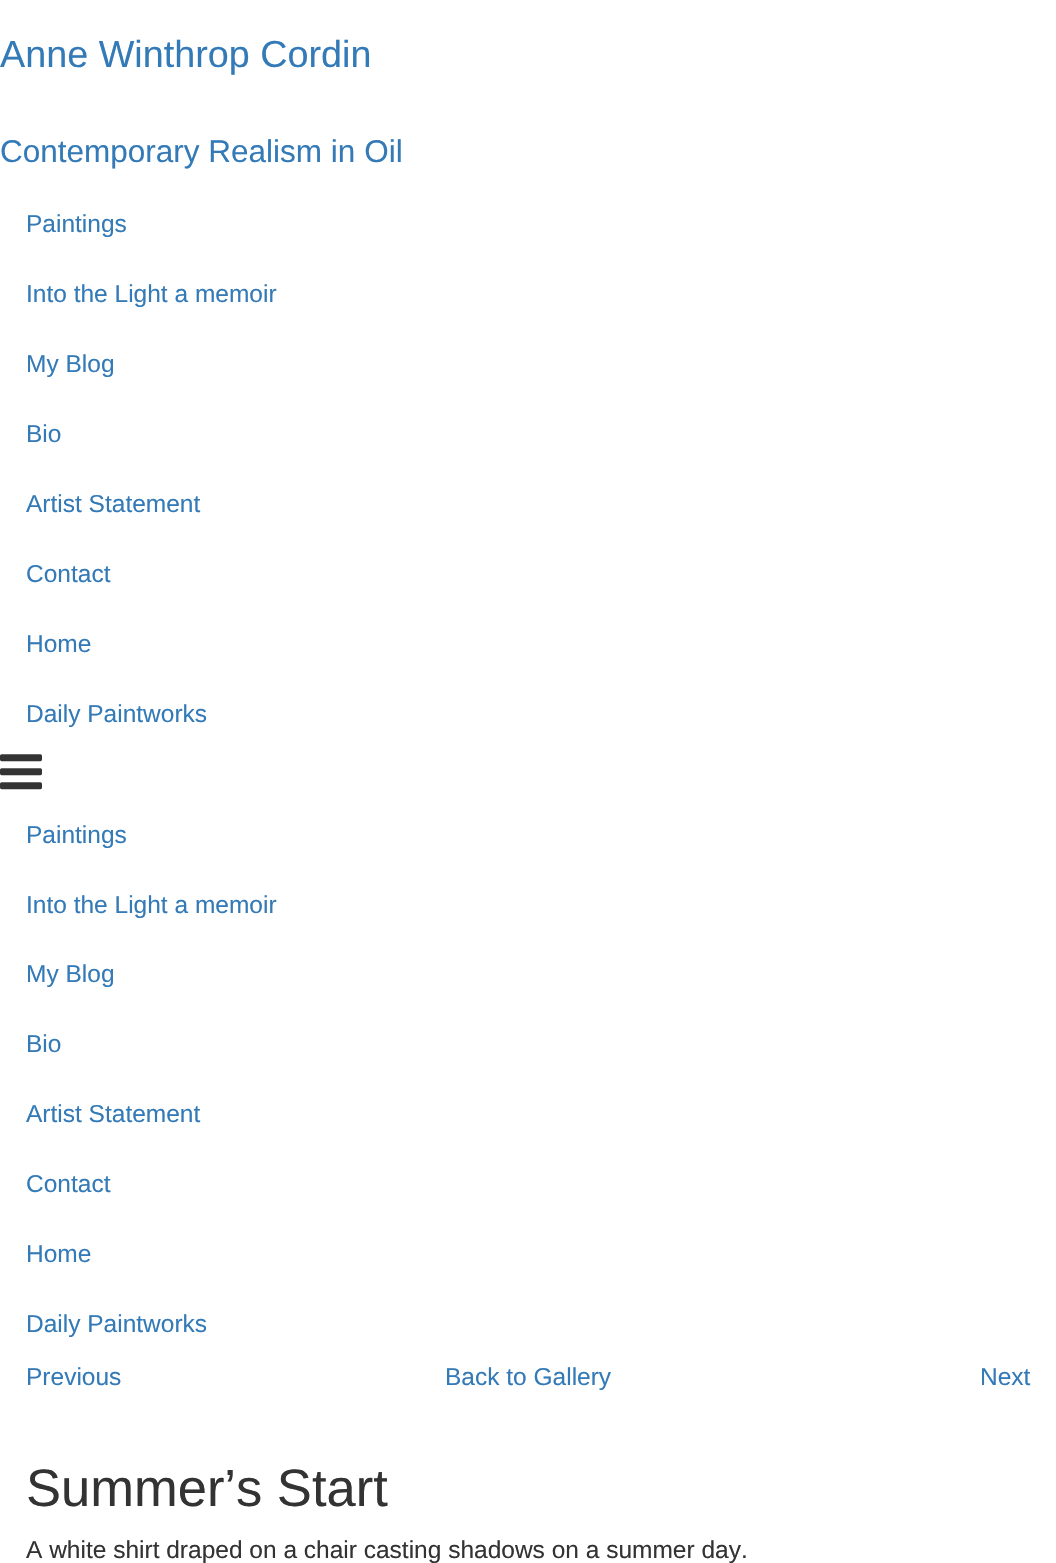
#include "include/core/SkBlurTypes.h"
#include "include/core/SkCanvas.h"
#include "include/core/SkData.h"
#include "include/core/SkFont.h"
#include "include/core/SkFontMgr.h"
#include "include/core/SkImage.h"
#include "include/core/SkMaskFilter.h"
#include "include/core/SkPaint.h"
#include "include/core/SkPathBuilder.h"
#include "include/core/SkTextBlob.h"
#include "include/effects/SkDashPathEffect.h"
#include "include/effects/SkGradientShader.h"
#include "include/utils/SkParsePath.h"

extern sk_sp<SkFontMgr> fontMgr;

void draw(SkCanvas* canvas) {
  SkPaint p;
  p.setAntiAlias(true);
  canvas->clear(SK_ColorWHITE);
  canvas->drawImageRect(SkImages::DeferredFromEncodedData(SkData::MakeFromFileName("images/1.png")), SkRect::MakeLTRB(0, 754, 42, 790), SkSamplingOptions());
  SkFont font1(fontMgr->matchFamilyStyle("Liberation Sans", SkFontStyle::Normal()), 37.75f);
  font1.setSubpixel(true);
  p.setColor(SkColorSetRGB(51, 122, 183));
  canvas->drawString("Anne Winthrop Cordin", 0, 67, font1, p);
  SkFont font2(fontMgr->matchFamilyStyle("Liberation Sans", SkFontStyle::Normal()), 31.5f);
  font2.setSubpixel(true);
  canvas->drawString("Contemporary Realism in Oil", 0, 162, font2, p);
  SkFont font3(fontMgr->matchFamilyStyle("Liberation Sans", SkFontStyle::Normal()), 24.5f);
  font3.setSubpixel(true);
  canvas->drawString("Paintings", 26, 232, font3, p);
  canvas->drawString("Into the Light a memoir", 26, 302, font3, p);
  canvas->drawString("My Blog", 26, 372, font3, p);
  canvas->drawString("Bio", 26, 442, font3, p);
  canvas->drawString("Artist Statement", 26, 512, font3, p);
  canvas->drawString("Contact", 26, 582, font3, p);
  canvas->drawString("Home", 26, 652, font3, p);
  canvas->drawString("Daily Paintworks", 26, 722, font3, p);
  canvas->drawString("Paintings", 26, 843, font3, p);
  canvas->drawString("Into the Light a memoir", 26, 913, font3, p);
  canvas->drawString("My Blog", 26, 982, font3, p);
  canvas->drawString("Bio", 26, 1052, font3, p);
  canvas->drawString("Artist Statement", 26, 1122, font3, p);
  canvas->drawString("Contact", 26, 1192, font3, p);
  canvas->drawString("Home", 26, 1262, font3, p);
  canvas->drawString("Daily Paintworks", 26, 1332, font3, p);
  canvas->drawString("Previous", 26, 1385, font3, p);
  canvas->drawString("Back to Gallery", 445, 1385, font3, p);
  canvas->drawString("Next", 980, 1385, font3, p);
  SkFont font4(fontMgr->matchFamilyStyle("Liberation Sans", SkFontStyle::Normal()), 52.5f);
  font4.setSubpixel(true);
  p.setColor(SkColorSetRGB(51, 51, 51));
  canvas->drawString("Summer’s Start", 26, 1506, font4, p);
  canvas->drawString("A white shirt draped on a chair casting shadows on a summer day.", 26, 1558, font3, p);
}
